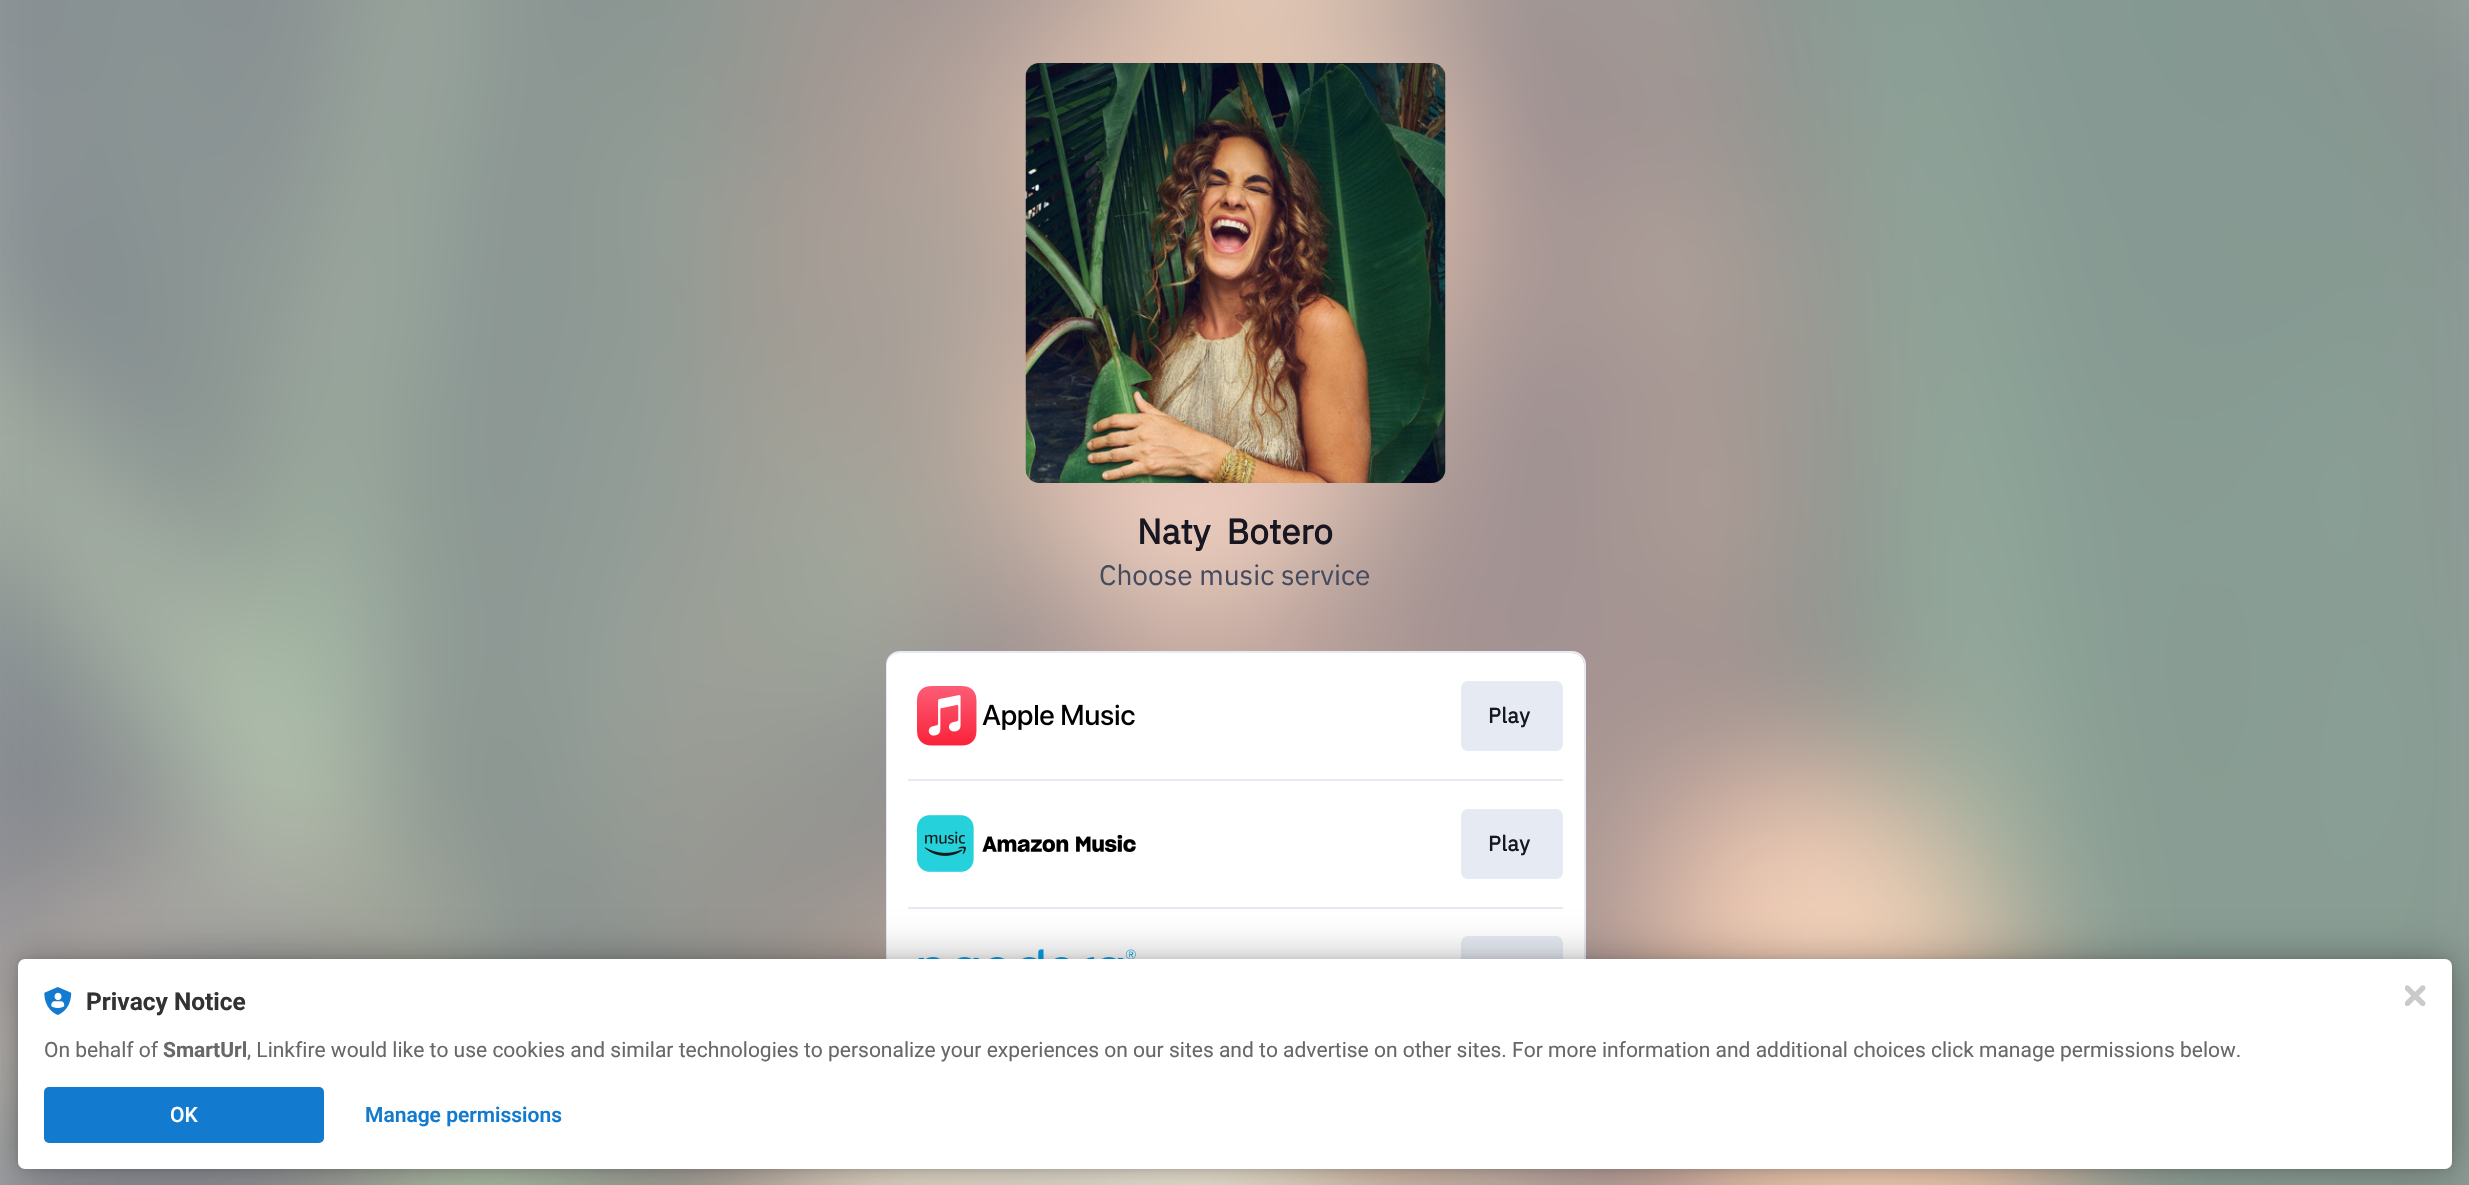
#include "include/core/SkBlurTypes.h"
#include "include/core/SkCanvas.h"
#include "include/core/SkData.h"
#include "include/core/SkFont.h"
#include "include/core/SkFontMgr.h"
#include "include/core/SkImage.h"
#include "include/core/SkMaskFilter.h"
#include "include/core/SkPaint.h"
#include "include/core/SkPathBuilder.h"
#include "include/core/SkTextBlob.h"
#include "include/effects/SkDashPathEffect.h"
#include "include/effects/SkGradientShader.h"
#include "include/utils/SkParsePath.h"

extern sk_sp<SkFontMgr> fontMgr;

void draw(SkCanvas* canvas) {
  SkPaint p;
  p.setAntiAlias(true);
  auto spacedText = [&](const char* s, float x, float y, const SkFont& font, const SkPaint& ink, float letter, float word) {
    std::vector<SkGlyphID> glyphs(font.countText(s, strlen(s), SkTextEncoding::kUTF8));
    std::vector<float> xs(glyphs.size());
    font.textToGlyphs(s, strlen(s), SkTextEncoding::kUTF8, glyphs);
    font.getXPos(glyphs, xs, x);
    float extra = 0;
    for (size_t i = 0; i < glyphs.size(); i++) {
      xs[i] += extra;
      extra += letter + word * (glyphs[i] == font.unicharToGlyph(' '));
    }
    canvas->drawTextBlob(SkTextBlob::MakeFromPosHGlyphs(glyphs, xs, y, font), 0, 0, ink);
  };
  canvas->clear(SK_ColorWHITE);
  canvas->drawImageRect(SkImages::DeferredFromEncodedData(SkData::MakeFromFileName("images/1.png")), SkRect::MakeLTRB(0, 0, 2469, 1185), SkSamplingOptions());
  canvas->drawImageRect(SkImages::DeferredFromEncodedData(SkData::MakeFromFileName("images/2.png")), SkRect::MakeLTRB(1025, 63, 1446, 483), SkSamplingOptions());
  p.setStyle(SkPaint::kStroke_Style);
  p.setStrokeWidth(2);
  p.setColor(SkColorSetRGB(230, 234, 242));
  canvas->drawRoundRect(SkRect::MakeLTRB(887, 652, 1585, 1163), 13, 13, p);
  p.setStyle(SkPaint::kFill_Style);
  p.setColor(SK_ColorWHITE);
  canvas->drawRoundRect(SkRect::MakeLTRB(887, 653, 1584, 1162), 12, 12, p);
  canvas->drawImageRect(SkImages::DeferredFromEncodedData(SkData::MakeFromFileName("images/3.png")), SkRect::MakeLTRB(917, 686, 1135, 746), SkSamplingOptions());
  p.setColor(SkColorSetRGB(230, 234, 242));
  canvas->drawRoundRect(SkRect::MakeLTRB(1461, 681, 1563, 751), 7, 7, p);
  canvas->drawRect(SkRect::MakeLTRB(908, 779, 1563, 781), p);
  canvas->drawImageRect(SkImages::DeferredFromEncodedData(SkData::MakeFromFileName("images/4.png")), SkRect::MakeLTRB(917, 815, 1136, 872), SkSamplingOptions());
  canvas->drawRoundRect(SkRect::MakeLTRB(1461, 809, 1563, 879), 7, 7, p);
  canvas->drawRect(SkRect::MakeLTRB(908, 907, 1563, 909), p);
  canvas->drawImageRect(SkImages::DeferredFromEncodedData(SkData::MakeFromFileName("images/5.png")), SkRect::MakeLTRB(918, 949, 1136, 959), SkSamplingOptions());
  canvas->drawRoundRect(SkRect::MakeLTRB(1461, 936, 1563, 1006), 7, 7, p);
  p.setColor(SkColorSetARGB(31, 0, 0, 0));
  p.setMaskFilter(SkMaskFilter::MakeBlur(kNormal_SkBlurStyle, 3.5f));
  canvas->drawRoundRect(SkRect::MakeLTRB(18, 959, 2452, 1169), 7, 7, p);
  p.setMaskFilter(nullptr);
  p.setColor(SkColorSetARGB(77, 0, 0, 0));
  p.setMaskFilter(SkMaskFilter::MakeBlur(kNormal_SkBlurStyle, 21));
  canvas->drawRoundRect(SkRect::MakeLTRB(18, 959, 2452, 1169), 7, 7, p);
  p.setMaskFilter(nullptr);
  p.setColor(SK_ColorWHITE);
  canvas->drawRoundRect(SkRect::MakeLTRB(18, 959, 2452, 1169), 7, 7, p);
  canvas->drawImageRect(SkImages::DeferredFromEncodedData(SkData::MakeFromFileName("images/6.png")), SkRect::MakeLTRB(44, 987, 72, 1015), SkSamplingOptions());
  p.setColor(SkColorSetRGB(19, 123, 207));
  canvas->drawRoundRect(SkRect::MakeLTRB(44, 1087, 324, 1143), 5, 5, p);
  canvas->drawImageRect(SkImages::DeferredFromEncodedData(SkData::MakeFromFileName("images/7.png")), SkRect::MakeLTRB(2405, 985, 2426, 1006), SkSamplingOptions());
  SkFont font1(fontMgr->matchFamilyStyle("IBM Plex Sans", SkFontStyle::Bold()), 35);
  font1.setSubpixel(true);
  p.setColor(SkColorSetRGB(24, 23, 33));
  spacedText("Naty Botero", 1137, 544, font1, p, 0, 8);
  SkFont font2(fontMgr->matchFamilyStyle("IBM Plex Sans", SkFontStyle::Normal()), 28);
  font2.setSubpixel(true);
  p.setColor(SkColorSetRGB(69, 75, 95));
  canvas->drawString("Choose music service", 1099, 585, font2, p);
  SkFont font3(fontMgr->matchFamilyStyle("IBM Plex Sans", SkFontStyle::Bold()), 21);
  font3.setSubpixel(true);
  p.setColor(SkColorSetRGB(24, 23, 33));
  spacedText("Play", 1488, 723, font3, p, 0.5f, 0);
  spacedText("Play", 1488, 851, font3, p, 0.5f, 0);
  SkFont font4(fontMgr->matchFamilyStyle("Roboto", SkFontStyle::Bold()), 24.5f);
  font4.setSubpixel(true);
  p.setColor(SkColorSetRGB(50, 50, 50));
  canvas->drawString("Privacy Notice", 86, 1010, font4, p);
  SkFont font5(fontMgr->matchFamilyStyle("Roboto", SkFontStyle::Normal()), 21);
  font5.setSubpixel(true);
  p.setColor(SkColorSetRGB(104, 104, 104));
  canvas->drawString("On behalf of", 44, 1057, font5, p);
  SkFont font6(fontMgr->matchFamilyStyle("Roboto", SkFontStyle::Bold()), 21);
  font6.setSubpixel(true);
  canvas->drawString("SmartUrl", 163, 1057, font6, p);
  canvas->drawString(", Linkfire would like to use cookies and similar technologies to personalize your experiences on our sites and to advertise on other sites. For more information and additional choices click manage permissions below.", 247, 1057, font5, p);
  SkFont font7(fontMgr->matchFamilyStyle("Roboto", SkFontStyle(500, SkFontStyle::kNormal_Width, SkFontStyle::kUpright_Slant)), 21);
  font7.setSubpixel(true);
  p.setColor(SK_ColorWHITE);
  canvas->drawString("OK", 170, 1122, font7, p);
  SkFont font8(fontMgr->matchFamilyStyle("Roboto", SkFontStyle(600, SkFontStyle::kNormal_Width, SkFontStyle::kUpright_Slant)), 21);
  font8.setSubpixel(true);
  p.setColor(SkColorSetRGB(19, 123, 207));
  canvas->drawString("Manage permissions", 365, 1122, font8, p);
}
